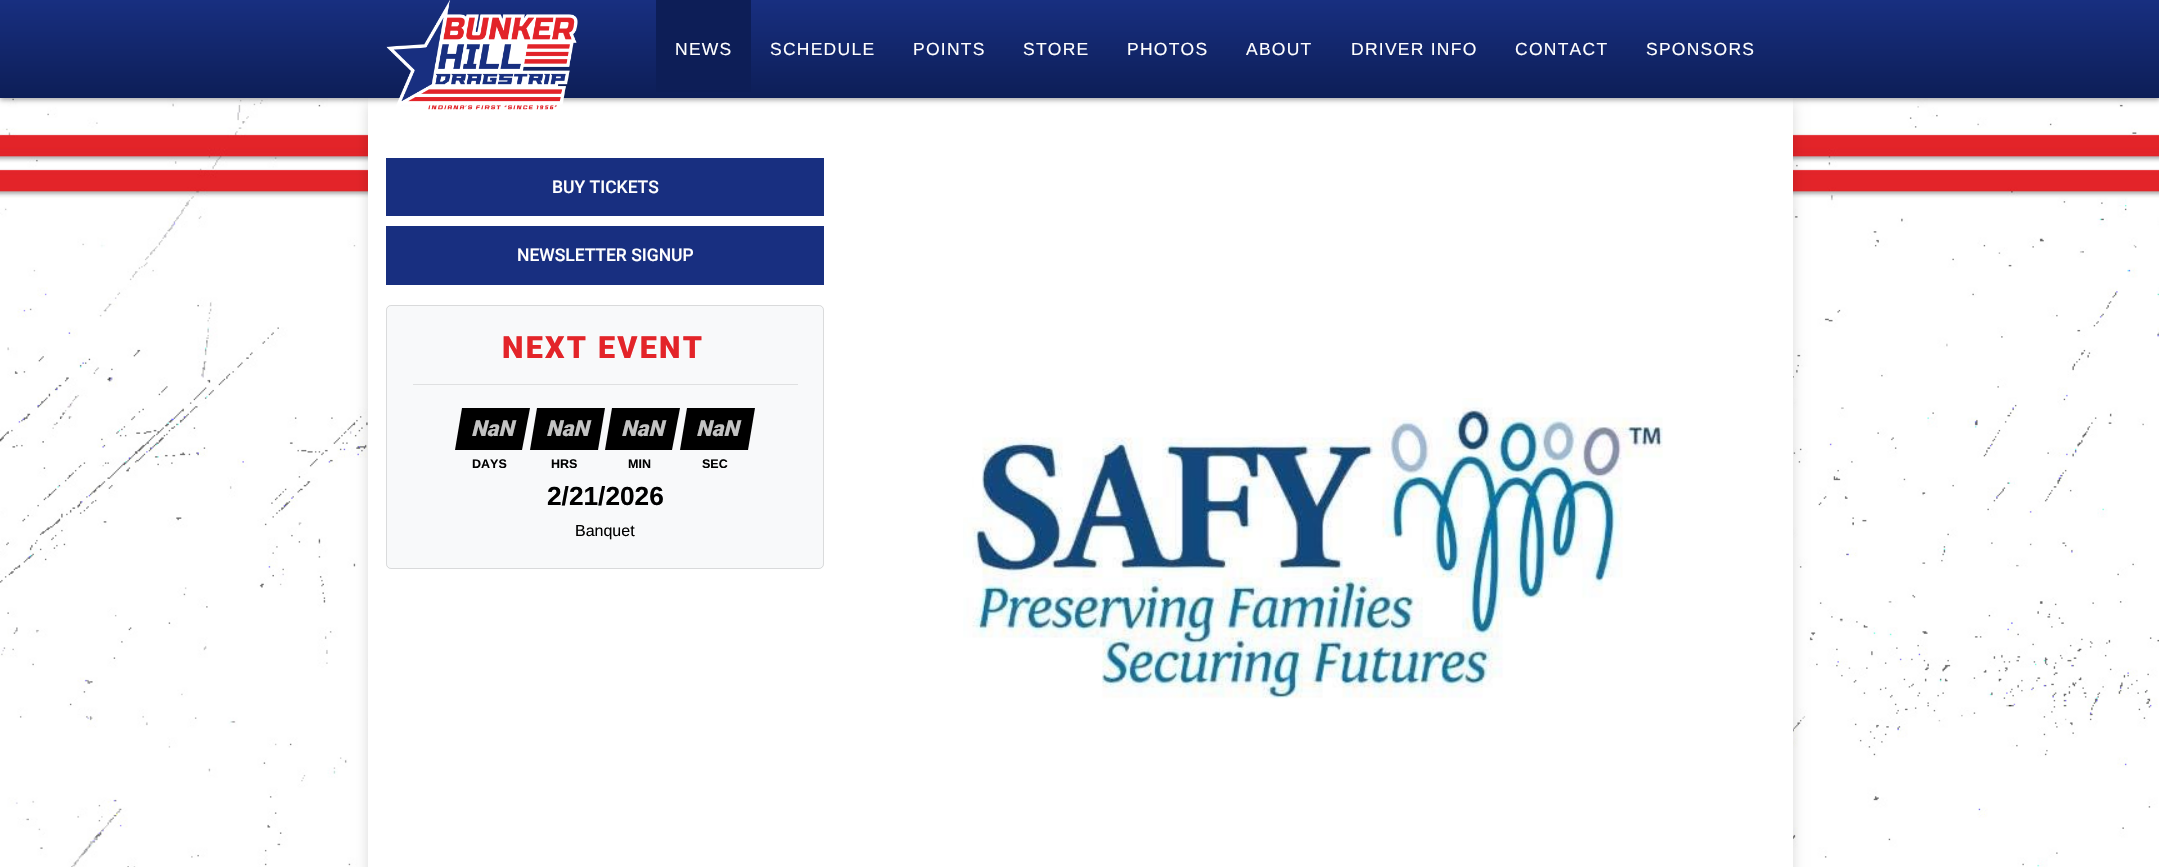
#include "include/core/SkBlurTypes.h"
#include "include/core/SkCanvas.h"
#include "include/core/SkData.h"
#include "include/core/SkFont.h"
#include "include/core/SkFontMgr.h"
#include "include/core/SkImage.h"
#include "include/core/SkMaskFilter.h"
#include "include/core/SkPaint.h"
#include "include/core/SkPathBuilder.h"
#include "include/core/SkTextBlob.h"
#include "include/effects/SkDashPathEffect.h"
#include "include/effects/SkGradientShader.h"
#include "include/utils/SkParsePath.h"

extern sk_sp<SkFontMgr> fontMgr;

void draw(SkCanvas* canvas) {
  SkPaint p;
  p.setAntiAlias(true);
  auto spacedText = [&](const char* s, float x, float y, const SkFont& font, const SkPaint& ink, float letter, float word) {
    std::vector<SkGlyphID> glyphs(font.countText(s, strlen(s), SkTextEncoding::kUTF8));
    std::vector<float> xs(glyphs.size());
    font.textToGlyphs(s, strlen(s), SkTextEncoding::kUTF8, glyphs);
    font.getXPos(glyphs, xs, x);
    float extra = 0;
    for (size_t i = 0; i < glyphs.size(); i++) {
      xs[i] += extra;
      extra += letter + word * (glyphs[i] == font.unicharToGlyph(' '));
    }
    canvas->drawTextBlob(SkTextBlob::MakeFromPosHGlyphs(glyphs, xs, y, font), 0, 0, ink);
  };
  canvas->clear(SK_ColorWHITE);
  canvas->drawImageRect(SkImages::DeferredFromEncodedData(SkData::MakeFromFileName("images/2.png")), SkRect::MakeLTRB(0, 98, 2159, 867), SkSamplingOptions());
  p.setColor(SkColorSetARGB(38, 0, 0, 0));
  p.setMaskFilter(SkMaskFilter::MakeBlur(kNormal_SkBlurStyle, 6));
  canvas->drawRect(SkRect::MakeLTRB(368, 104, 1793, 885), p);
  p.setMaskFilter(nullptr);
  p.setColor(SK_ColorWHITE);
  canvas->drawRect(SkRect::MakeLTRB(368, 98, 1793, 867), p);
  p.setColor(SkColorSetARGB(89, 0, 0, 0));
  p.setMaskFilter(SkMaskFilter::MakeBlur(kNormal_SkBlurStyle, 2.5f));
  canvas->drawRect(SkRect::MakeLTRB(0, 3, 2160, 100), p);
  p.setMaskFilter(nullptr);
  {
    const SkColor colors[] = {SkColorSetRGB(13, 30, 87), SkColorSetRGB(24, 47, 128)};
    const float stops[] = {0, 1};
    const SkPoint ends[] = {{1080, 98}, {1080, 0}};
    p.setShader(SkGradientShader::MakeLinear(ends, colors, stops, 2, SkTileMode::kClamp));
    p.setAlpha(255);
  }
  canvas->drawRect(SkRect::MakeLTRB(0, 0, 2159, 98), p);
  canvas->drawImageRect(SkImages::DeferredFromEncodedData(SkData::MakeFromFileName("images/1.png")), SkRect::MakeLTRB(386, 0, 578, 110), SkSamplingOptions());
  p.setShader(nullptr);
  p.setColor(SkColorSetRGB(13, 30, 87));
  canvas->drawRect(SkRect::MakeLTRB(656, 0, 751, 92), p);
  p.setColor(SkColorSetRGB(24, 47, 128));
  canvas->drawRect(SkRect::MakeLTRB(386, 158, 824, 216), p);
  canvas->drawRect(SkRect::MakeLTRB(386, 226, 824, 285), p);
  p.setColor(SkColorSetRGB(248, 249, 250));
  canvas->drawRoundRect(SkRect::MakeLTRB(386, 305, 824, 569), 5, 5, p);
  p.setStyle(SkPaint::kStroke_Style);
  p.setStrokeWidth(1);
  p.setColor(SkColorSetARGB(31, 0, 0, 0));
  canvas->drawRoundRect(SkRect::MakeLTRB(386.5f, 305.5f, 823.5f, 568.5f), 4.5f, 4.5f, p);
  p.setStyle(SkPaint::kFill_Style);
  p.setColor(SkColorSetRGB(223, 224, 225));
  canvas->drawRect(SkRect::MakeLTRB(413, 384, 798, 385), p);
  p.setColor(SK_ColorBLACK);
  canvas->drawPath(SkPathBuilder().moveTo(455, 450).lineTo(522, 450).lineTo(530, 408).lineTo(462, 408).close().detach(), p);
  canvas->drawPath(SkPathBuilder().moveTo(530, 450).lineTo(598, 450).lineTo(605, 408).lineTo(537, 408).close().detach(), p);
  canvas->drawPath(SkPathBuilder().moveTo(605, 450).lineTo(672, 450).lineTo(680, 408).lineTo(612, 408).close().detach(), p);
  canvas->drawPath(SkPathBuilder().moveTo(680, 450).lineTo(748, 450).lineTo(755, 408).lineTo(687, 408).close().detach(), p);
  canvas->drawImageRect(SkImages::DeferredFromEncodedData(SkData::MakeFromFileName("images/3.png")), SkRect::MakeLTRB(963, 398, 1663, 699), SkSamplingOptions());
  SkFont font1(fontMgr->matchFamilyStyle("Liberation Sans", SkFontStyle::Normal()), 17.5f);
  font1.setSubpixel(true);
  p.setColor(SK_ColorWHITE);
  spacedText("NEWS", 675, 55, font1, p, 1.25f, 0);
  spacedText("SCHEDULE", 770, 55, font1, p, 1.25f, 0);
  spacedText("POINTS", 913, 55, font1, p, 1.25f, 0);
  spacedText("STORE", 1023, 55, font1, p, 1.25f, 0);
  spacedText("PHOTOS", 1127, 55, font1, p, 1.25f, 0);
  spacedText("ABOUT", 1246, 55, font1, p, 1.25f, 0);
  spacedText("DRIVER INFO", 1351, 55, font1, p, 1.25f, 0);
  spacedText("CONTACT", 1515, 55, font1, p, 1.25f, 0);
  spacedText("SPONSORS", 1646, 55, font1, p, 1.25f, 0);
  SkFont font2(fontMgr->matchFamilyStyle("Roboto", SkFontStyle(500, SkFontStyle::kNormal_Width, SkFontStyle::kUpright_Slant)), 17.5f);
  font2.setSubpixel(true);
  canvas->drawString("BUY TICKETS", 552, 193, font2, p);
  canvas->drawString("NEWSLETTER SIGNUP", 517, 261, font2, p);
  SkFont font3(fontMgr->matchFamilyStyle("Roboto", SkFontStyle(900, SkFontStyle::kNormal_Width, SkFontStyle::kUpright_Slant)), 30.5f);
  font3.setSubpixel(true);
  p.setColor(SkColorSetRGB(227, 36, 41));
  spacedText("NEXT EVENT", 502, 358, font3, p, 2.25f, 0);
  SkFont font4(fontMgr->matchFamilyStyle("Roboto", SkFontStyle(900, SkFontStyle::kNormal_Width, SkFontStyle::kItalic_Slant)), 22);
  font4.setSubpixel(true);
  p.setColor(SkColorSetRGB(195, 195, 195));
  canvas->drawString("NaN", 471, 436, font4, p);
  canvas->drawString("NaN", 546, 436, font4, p);
  canvas->drawString("NaN", 621, 436, font4, p);
  canvas->drawString("NaN", 696, 436, font4, p);
  SkFont font5(fontMgr->matchFamilyStyle("Liberation Sans", SkFontStyle::Bold()), 12.5f);
  font5.setSubpixel(true);
  p.setColor(SK_ColorBLACK);
  canvas->drawString("DAYS", 472, 468, font5, p);
  canvas->drawString("HRS", 551, 468, font5, p);
  canvas->drawString("MIN", 628, 468, font5, p);
  canvas->drawString("SEC", 702, 468, font5, p);
  SkFont font6(fontMgr->matchFamilyStyle("Liberation Sans", SkFontStyle::Bold()), 26.25f);
  font6.setSubpixel(true);
  canvas->drawString("2/21/2026", 547, 505, font6, p);
  SkFont font7(fontMgr->matchFamilyStyle("Liberation Sans", SkFontStyle::Normal()), 16);
  font7.setSubpixel(true);
  canvas->drawString("Banquet", 575, 536, font7, p);
}
